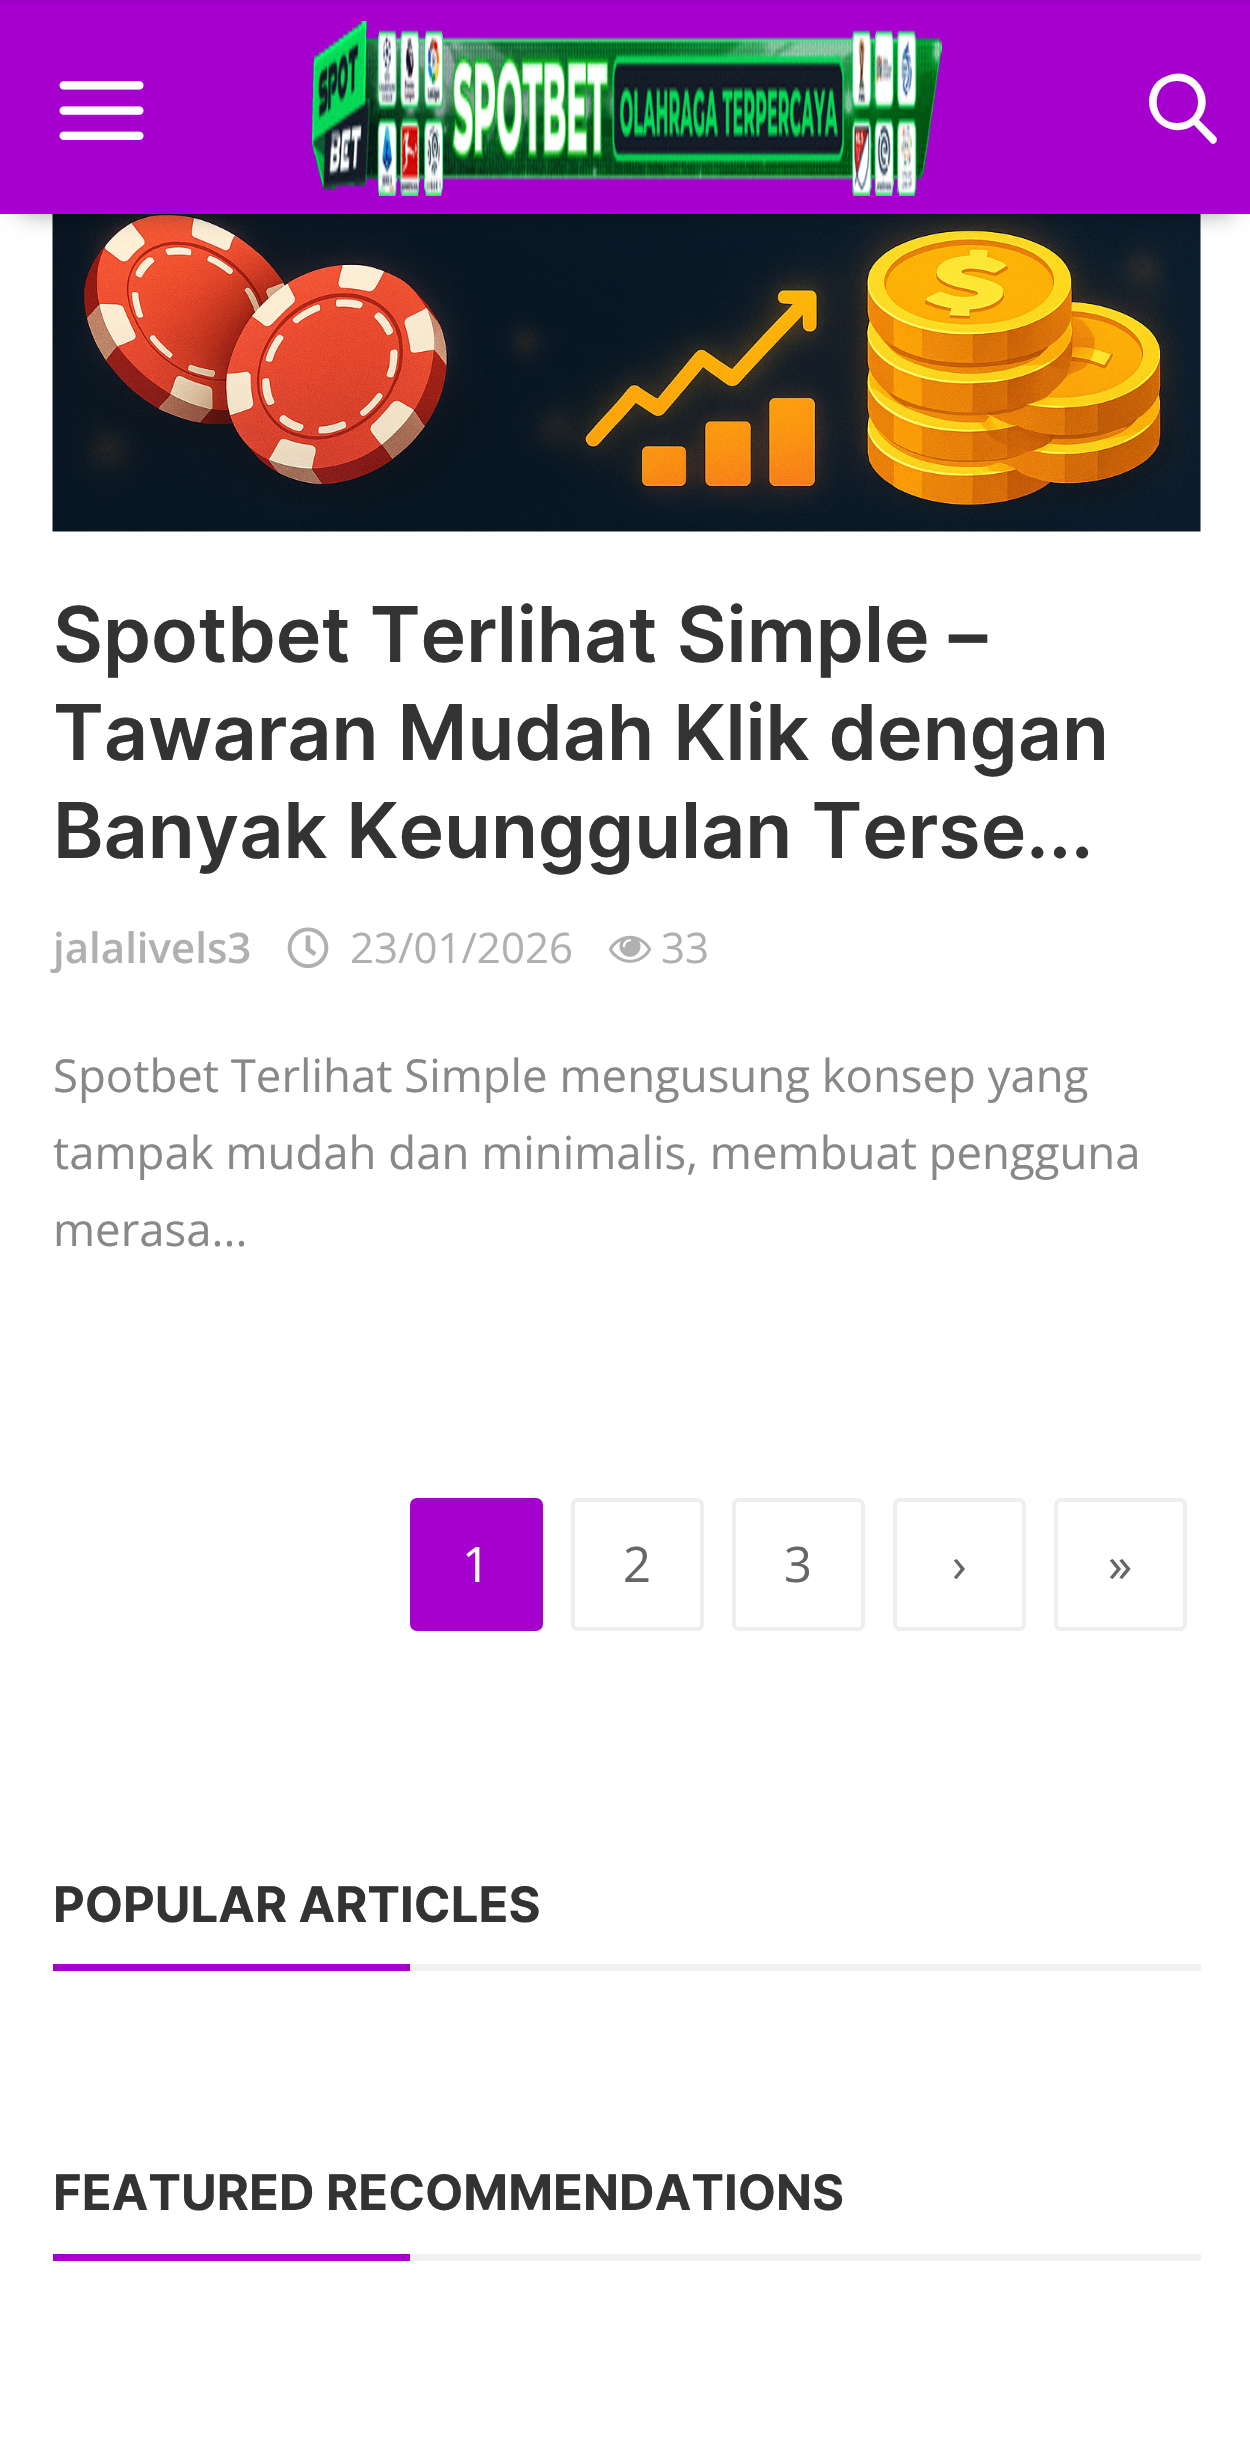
#include "include/core/SkBlurTypes.h"
#include "include/core/SkCanvas.h"
#include "include/core/SkData.h"
#include "include/core/SkFont.h"
#include "include/core/SkFontMgr.h"
#include "include/core/SkImage.h"
#include "include/core/SkMaskFilter.h"
#include "include/core/SkPaint.h"
#include "include/core/SkPathBuilder.h"
#include "include/core/SkTextBlob.h"
#include "include/effects/SkDashPathEffect.h"
#include "include/effects/SkGradientShader.h"
#include "include/utils/SkParsePath.h"

extern sk_sp<SkFontMgr> fontMgr;

void draw(SkCanvas* canvas) {
  SkPaint p;
  p.setAntiAlias(true);
  canvas->clear(SK_ColorWHITE);
  p.setColor(SkColorSetRGB(250, 250, 250));
  canvas->drawRect(SkRect::MakeLTRB(53, 214, 1201, 532), p);
  canvas->drawImageRect(SkImages::DeferredFromEncodedData(SkData::MakeFromFileName("images/3.png")), SkRect::MakeLTRB(52, 214, 1201, 532), SkSamplingOptions());
  p.setColor(SkColorSetARGB(128, 0, 0, 0));
  p.setMaskFilter(SkMaskFilter::MakeBlur(kNormal_SkBlurStyle, 12));
  canvas->drawRect(SkRect::MakeLTRB(21, 39, 1232, 210), p);
  p.setMaskFilter(nullptr);
  p.setColor(SkColorSetRGB(165, 0, 206));
  canvas->drawRect(SkRect::MakeLTRB(0, 4, 1250, 214), p);
  p.setColor(SkColorSetRGB(157, 0, 196));
  canvas->drawRect(SkRect::MakeLTRB(0, 0, 1250, 4), p);
  canvas->drawImageRect(SkImages::DeferredFromEncodedData(SkData::MakeFromFileName("images/1.png")), SkRect::MakeLTRB(59, 81, 144, 140), SkSamplingOptions());
  canvas->drawImageRect(SkImages::DeferredFromEncodedData(SkData::MakeFromFileName("images/2.png")), SkRect::MakeLTRB(312, 21, 942, 196), SkSamplingOptions());
  p.setColor(SK_ColorWHITE);
  canvas->drawPath(SkPathBuilder().moveTo(1216, 137).lineTo(1199, 120).cubicTo(1218, 98, 1194, 64, 1167, 76).cubicTo(1160, 78, 1155, 83, 1152, 89).cubicTo(1148, 97, 1148, 107, 1152, 114).cubicTo(1160, 130, 1180, 135, 1194, 125).lineTo(1211, 143).cubicTo(1214, 146, 1219, 141, 1216, 137).close().moveTo(1177, 81).cubicTo(1205, 81, 1205, 123, 1177, 123).cubicTo(1150, 123, 1150, 81, 1177, 81).close().detach(), p);
  canvas->drawImageRect(SkImages::DeferredFromEncodedData(SkData::MakeFromFileName("images/4.png")), SkRect::MakeLTRB(287, 927, 329, 969), SkSamplingOptions());
  canvas->drawImageRect(SkImages::DeferredFromEncodedData(SkData::MakeFromFileName("images/5.png")), SkRect::MakeLTRB(609, 935, 651, 963), SkSamplingOptions());
  p.setColor(SkColorSetRGB(165, 0, 206));
  canvas->drawRoundRect(SkRect::MakeLTRB(412, 1500, 541, 1629), 5, 5, p);
  p.setStyle(SkPaint::kStroke_Style);
  p.setStrokeWidth(4);
  canvas->drawRoundRect(SkRect::MakeLTRB(412, 1500, 541, 1629), 5, 5, p);
  p.setColor(SkColorSetRGB(238, 238, 238));
  canvas->drawRoundRect(SkRect::MakeLTRB(573, 1500, 702, 1629), 5, 5, p);
  canvas->drawRoundRect(SkRect::MakeLTRB(734, 1500, 863, 1629), 5, 5, p);
  canvas->drawRoundRect(SkRect::MakeLTRB(895, 1500, 1024, 1629), 5, 5, p);
  canvas->drawRoundRect(SkRect::MakeLTRB(1056, 1500, 1185, 1629), 5, 5, p);
  p.setStyle(SkPaint::kFill_Style);
  p.setColor(SkColorSetRGB(241, 241, 241));
  canvas->drawRect(SkRect::MakeLTRB(410, 1964, 1201, 1971), p);
  p.setColor(SkColorSetRGB(165, 0, 206));
  canvas->drawRect(SkRect::MakeLTRB(53, 1964, 410, 1971), p);
  p.setColor(SkColorSetRGB(241, 241, 241));
  canvas->drawRect(SkRect::MakeLTRB(410, 2254, 1201, 2261), p);
  p.setColor(SkColorSetRGB(165, 0, 206));
  canvas->drawRect(SkRect::MakeLTRB(53, 2254, 410, 2261), p);
  SkFont font1(fontMgr->matchFamilyStyle("Inter", SkFontStyle(600, SkFontStyle::kNormal_Width, SkFontStyle::kUpright_Slant)), 77);
  font1.setSubpixel(true);
  p.setColor(SkColorSetRGB(51, 51, 51));
  canvas->drawString("Spotbet Terlihat Simple –", 53, 662, font1, p);
  canvas->drawString("Tawaran Mudah Klik dengan", 53, 760, font1, p);
  canvas->drawString("Banyak Keunggulan Terse...", 53, 858, font1, p);
  SkFont font2(fontMgr->matchFamilyStyle("Open Sans", SkFontStyle(600, SkFontStyle::kNormal_Width, SkFontStyle::kUpright_Slant)), 42);
  font2.setSubpixel(true);
  p.setColor(SkColorSetRGB(176, 176, 176));
  canvas->drawString("jalalivels3", 53, 963, font2, p);
  SkFont font3(fontMgr->matchFamilyStyle("Open Sans", SkFontStyle::Normal()), 42);
  font3.setSubpixel(true);
  canvas->drawString("23/01/2026", 350, 963, font3, p);
  canvas->drawString("33", 661, 963, font3, p);
  SkFont font4(fontMgr->matchFamilyStyle("Open Sans", SkFontStyle::Normal()), 45.5f);
  font4.setSubpixel(true);
  p.setColor(SkColorSetRGB(136, 136, 136));
  canvas->drawString("Spotbet Terlihat Simple mengusung konsep yang", 53, 1092, font4, p);
  canvas->drawString("tampak mudah dan minimalis, membuat pengguna", 53, 1169, font4, p);
  canvas->drawString("merasa...", 53, 1246, font4, p);
  SkFont font5(fontMgr->matchFamilyStyle("Open Sans", SkFontStyle::Normal()), 49);
  font5.setSubpixel(true);
  p.setColor(SK_ColorWHITE);
  canvas->drawString("1", 462, 1582, font5, p);
  p.setColor(SkColorSetRGB(102, 102, 102));
  canvas->drawString("2", 623, 1582, font5, p);
  canvas->drawString("3", 784, 1582, font5, p);
  canvas->drawString("›", 952, 1582, font5, p);
  canvas->drawString("»", 1108, 1582, font5, p);
  SkFont font6(fontMgr->matchFamilyStyle("Inter", SkFontStyle::Bold()), 49);
  font6.setSubpixel(true);
  p.setColor(SkColorSetRGB(51, 51, 51));
  canvas->drawString("POPULAR ARTICLES", 53, 1922, font6, p);
  canvas->drawString("FEATURED RECOMMENDATIONS", 53, 2210, font6, p);
}
